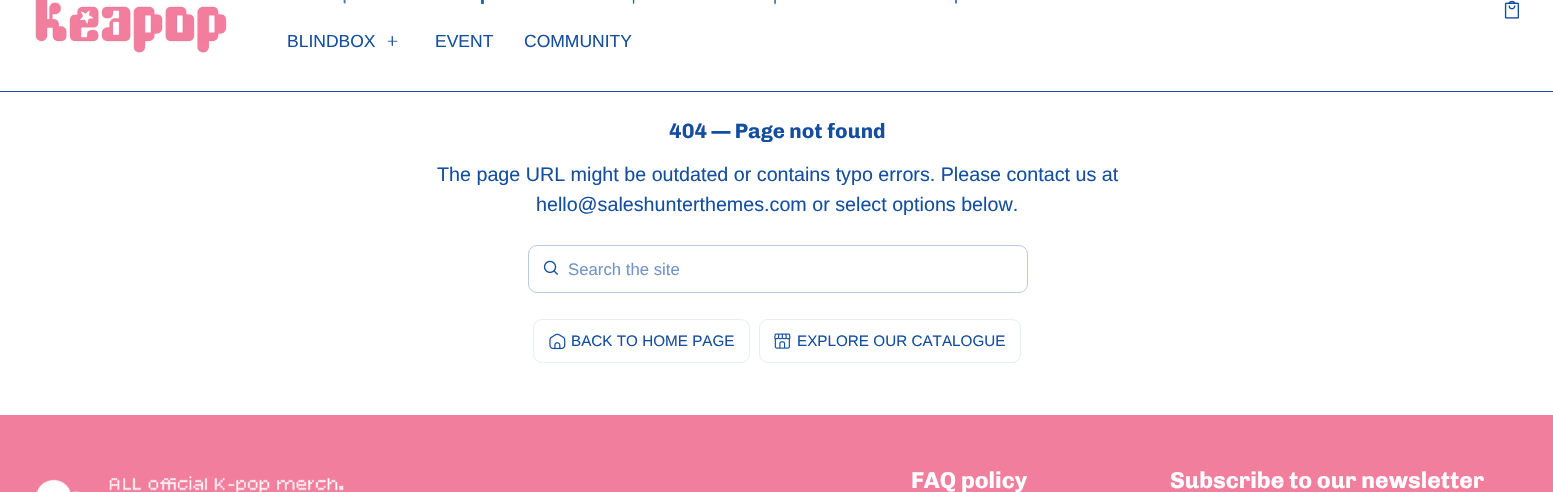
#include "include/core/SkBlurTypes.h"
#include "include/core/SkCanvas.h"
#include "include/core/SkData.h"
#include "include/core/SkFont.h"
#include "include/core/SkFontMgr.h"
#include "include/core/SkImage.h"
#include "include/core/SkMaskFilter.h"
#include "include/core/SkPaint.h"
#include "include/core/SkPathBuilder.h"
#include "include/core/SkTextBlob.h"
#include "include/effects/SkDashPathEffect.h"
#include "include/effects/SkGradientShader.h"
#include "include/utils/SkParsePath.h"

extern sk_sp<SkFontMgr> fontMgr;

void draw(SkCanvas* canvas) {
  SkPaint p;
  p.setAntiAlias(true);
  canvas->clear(SK_ColorWHITE);
  canvas->drawImageRect(SkImages::DeferredFromEncodedData(SkData::MakeFromFileName("images/1.png")), SkRect::MakeLTRB(34, 0, 228, 55), SkSamplingOptions());
  canvas->drawImageRect(SkImages::DeferredFromEncodedData(SkData::MakeFromFileName("images/2.png")), SkRect::MakeLTRB(1504, 0, 1520, 19), SkSamplingOptions());
  canvas->drawImageRect(SkImages::DeferredFromEncodedData(SkData::MakeFromFileName("images/4.png")), SkRect::MakeLTRB(344, 0, 346, 4), SkSamplingOptions());
  canvas->drawImageRect(SkImages::DeferredFromEncodedData(SkData::MakeFromFileName("images/3.png")), SkRect::MakeLTRB(343, 0, 345, 4), SkSamplingOptions());
  p.setColor(SkColorSetRGB(67, 113, 179));
  canvas->drawRect(SkRect::MakeLTRB(481, 0, 484, 4), p);
  canvas->drawImageRect(SkImages::DeferredFromEncodedData(SkData::MakeFromFileName("images/5.png")), SkRect::MakeLTRB(481, 0, 483, 4), SkSamplingOptions());
  canvas->drawImageRect(SkImages::DeferredFromEncodedData(SkData::MakeFromFileName("images/7.png")), SkRect::MakeLTRB(633, 0, 635, 4), SkSamplingOptions());
  canvas->drawImageRect(SkImages::DeferredFromEncodedData(SkData::MakeFromFileName("images/6.png")), SkRect::MakeLTRB(632, 0, 634, 4), SkSamplingOptions());
  canvas->drawImageRect(SkImages::DeferredFromEncodedData(SkData::MakeFromFileName("images/4.png")), SkRect::MakeLTRB(774, 0, 776, 4), SkSamplingOptions());
  canvas->drawImageRect(SkImages::DeferredFromEncodedData(SkData::MakeFromFileName("images/8.png")), SkRect::MakeLTRB(774, 0, 776, 5), SkSamplingOptions());
  canvas->drawImageRect(SkImages::DeferredFromEncodedData(SkData::MakeFromFileName("images/9.png")), SkRect::MakeLTRB(955, 0, 957, 4), SkSamplingOptions());
  canvas->drawImageRect(SkImages::DeferredFromEncodedData(SkData::MakeFromFileName("images/10.png")), SkRect::MakeLTRB(955, 0, 957, 4), SkSamplingOptions());
  canvas->drawImageRect(SkImages::DeferredFromEncodedData(SkData::MakeFromFileName("images/12.png")), SkRect::MakeLTRB(387, 36, 398, 47), SkSamplingOptions());
  canvas->drawImageRect(SkImages::DeferredFromEncodedData(SkData::MakeFromFileName("images/11.png")), SkRect::MakeLTRB(391, 35, 393, 46), SkSamplingOptions());
  p.setColor(SkColorSetRGB(20, 78, 160));
  canvas->drawRect(SkRect::MakeLTRB(0, 91, 1553, 92), p);
  p.setStyle(SkPaint::kStroke_Style);
  p.setStrokeWidth(1);
  p.setColor(SkColorSetRGB(185, 202, 227));
  canvas->drawRoundRect(SkRect::MakeLTRB(528.5f, 245.5f, 1027.5f, 292.5f), 8.5f, 8.5f, p);
  canvas->drawImageRect(SkImages::DeferredFromEncodedData(SkData::MakeFromFileName("images/13.png")), SkRect::MakeLTRB(543, 260, 558, 275), SkSamplingOptions());
  p.setColor(SkColorSetRGB(232, 237, 246));
  canvas->drawRoundRect(SkRect::MakeLTRB(533.5f, 319.5f, 749.5f, 362.5f), 8.5f, 8.5f, p);
  canvas->drawImageRect(SkImages::DeferredFromEncodedData(SkData::MakeFromFileName("images/14.png")), SkRect::MakeLTRB(549, 333, 566, 350), SkSamplingOptions());
  canvas->drawRoundRect(SkRect::MakeLTRB(759.5f, 319.5f, 1020.5f, 362.5f), 8.5f, 8.5f, p);
  canvas->drawImageRect(SkImages::DeferredFromEncodedData(SkData::MakeFromFileName("images/15.png")), SkRect::MakeLTRB(774, 333, 791, 349), SkSamplingOptions());
  p.setStyle(SkPaint::kFill_Style);
  p.setColor(SkColorSetRGB(242, 126, 158));
  canvas->drawRect(SkRect::MakeLTRB(0, 415, 1553, 492), p);
  canvas->drawImageRect(SkImages::DeferredFromEncodedData(SkData::MakeFromFileName("images/16.png")), SkRect::MakeLTRB(36, 476, 344, 492), SkSamplingOptions());
  SkFont font1(fontMgr->matchFamilyStyle("Arimo", SkFontStyle::Normal()), 17.5f);
  font1.setSubpixel(true);
  p.setColor(SkColorSetRGB(20, 78, 160));
  canvas->drawString("BLINDBOX", 287, 47, font1, p);
  canvas->drawString("EVENT", 435, 47, font1, p);
  canvas->drawString("COMMUNITY", 524, 47, font1, p);
  SkFont font2(fontMgr->matchFamilyStyle("Chivo", SkFontStyle::Bold()), 20.75f);
  font2.setSubpixel(true);
  canvas->drawString("404 — Page not found", 669, 138, font2, p);
  SkFont font3(fontMgr->matchFamilyStyle("Arimo", SkFontStyle::Normal()), 19.7f);
  font3.setSubpixel(true);
  canvas->drawString("The page URL might be outdated or contains typo errors. Please contact us at", 437, 181, font3, p);
  canvas->drawString("hello@saleshunterthemes.com or select options below.", 536, 211, font3, p);
  SkFont font4(fontMgr->matchFamilyStyle("Arimo", SkFontStyle::Normal()), 16.75f);
  font4.setSubpixel(true);
  p.setColor(SkColorSetRGB(114, 149, 198));
  canvas->drawString("Search the site", 568, 275, font4, p);
  SkFont font5(fontMgr->matchFamilyStyle("Arimo", SkFontStyle::Normal()), 15.25f);
  font5.setSubpixel(true);
  p.setColor(SkColorSetRGB(20, 78, 160));
  canvas->drawString("BACK TO HOME PAGE", 571, 346, font5, p);
  canvas->drawString("EXPLORE OUR CATALOGUE", 797, 346, font5, p);
  SkFont font6(fontMgr->matchFamilyStyle("Chivo", SkFontStyle::Bold()), 23);
  font6.setSubpixel(true);
  p.setColor(SK_ColorWHITE);
  canvas->drawString("FAQ policy", 911, 488, font6, p);
  canvas->drawString("Subscribe to our newsletter", 1170, 488, font6, p);
}
